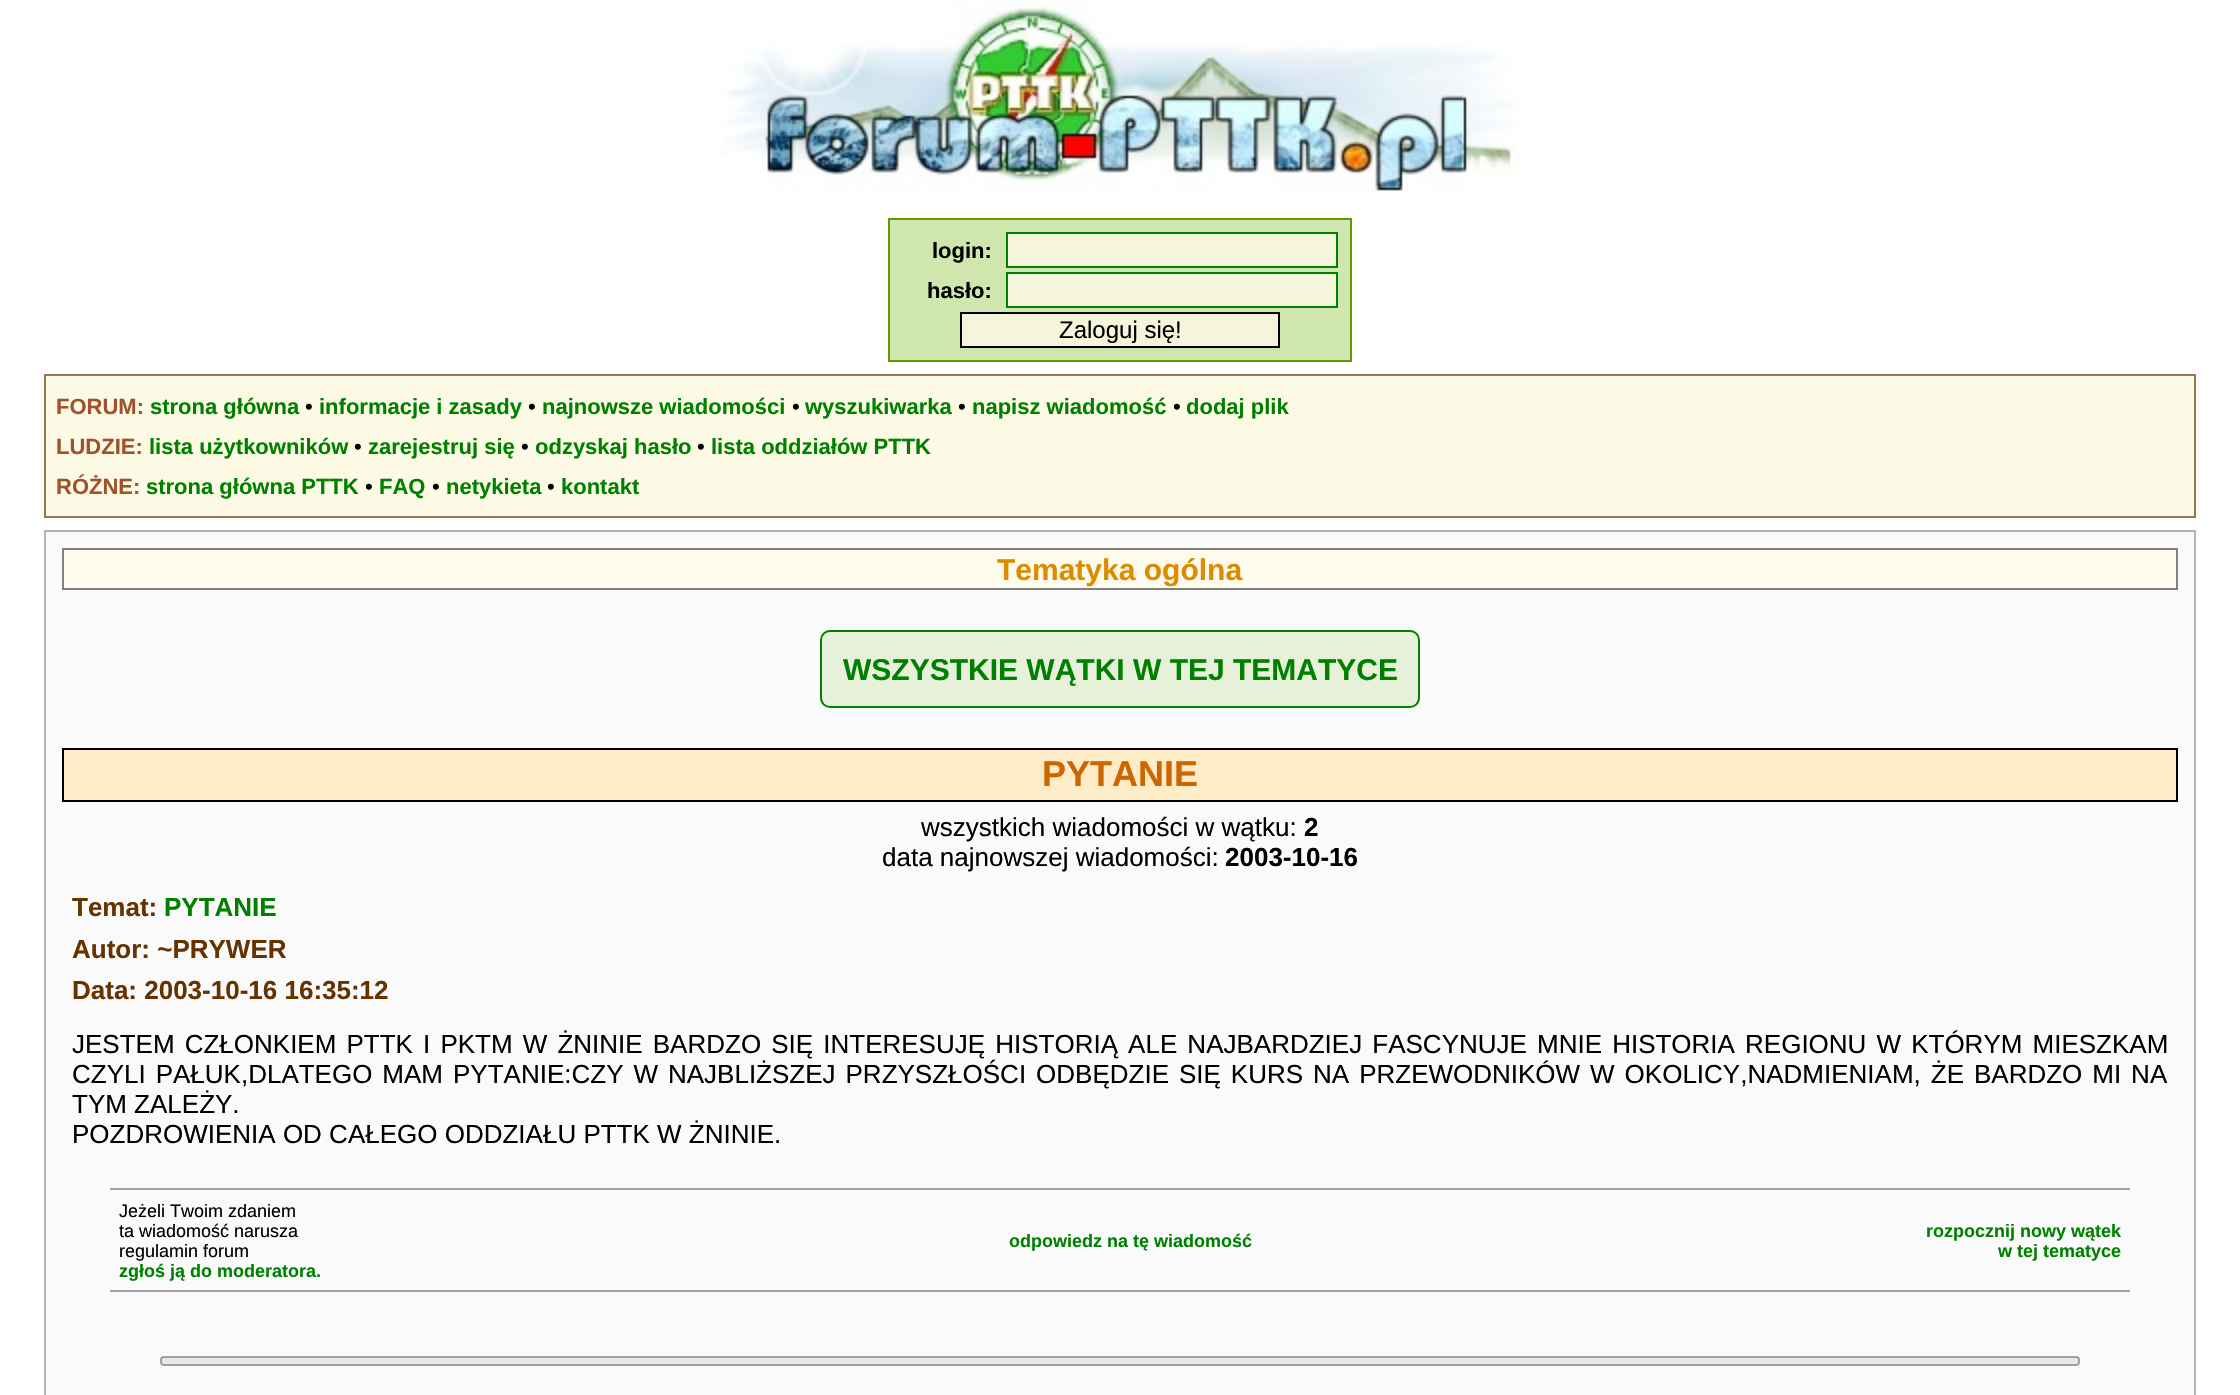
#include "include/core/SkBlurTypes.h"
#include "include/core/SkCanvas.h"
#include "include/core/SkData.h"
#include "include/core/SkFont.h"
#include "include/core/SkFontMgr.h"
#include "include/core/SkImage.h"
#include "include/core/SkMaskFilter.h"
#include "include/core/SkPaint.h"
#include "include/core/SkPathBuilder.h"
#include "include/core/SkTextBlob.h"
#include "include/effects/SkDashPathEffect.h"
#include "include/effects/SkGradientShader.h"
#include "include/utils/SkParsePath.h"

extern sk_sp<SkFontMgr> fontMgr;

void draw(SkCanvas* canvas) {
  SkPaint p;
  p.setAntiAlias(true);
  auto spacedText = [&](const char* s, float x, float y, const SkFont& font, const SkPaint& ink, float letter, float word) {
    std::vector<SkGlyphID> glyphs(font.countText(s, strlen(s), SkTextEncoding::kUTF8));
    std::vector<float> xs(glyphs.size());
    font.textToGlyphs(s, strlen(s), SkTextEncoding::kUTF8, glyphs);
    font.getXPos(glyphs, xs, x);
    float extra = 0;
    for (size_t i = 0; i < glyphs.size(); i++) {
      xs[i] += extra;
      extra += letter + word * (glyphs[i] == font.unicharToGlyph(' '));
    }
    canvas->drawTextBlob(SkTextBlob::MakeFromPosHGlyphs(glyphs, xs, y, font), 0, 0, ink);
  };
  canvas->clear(SK_ColorWHITE);
  canvas->drawImageRect(SkImages::DeferredFromEncodedData(SkData::MakeFromFileName("images/1.png")), SkRect::MakeLTRB(720, 0, 1531, 192), SkSamplingOptions());
  p.setColor(SkColorSetRGB(207, 230, 174));
  canvas->drawRect(SkRect::MakeLTRB(889, 219, 1351, 361), p);
  p.setStyle(SkPaint::kStroke_Style);
  p.setStrokeWidth(2);
  p.setColor(SkColorSetRGB(102, 153, 0));
  canvas->drawRect(SkRect::MakeLTRB(889, 219, 1351, 361), p);
  p.setStyle(SkPaint::kFill_Style);
  p.setColor(SkColorSetRGB(245, 245, 220));
  canvas->drawRect(SkRect::MakeLTRB(1007, 233, 1337, 267), p);
  p.setStyle(SkPaint::kStroke_Style);
  p.setColor(SkColorSetRGB(0, 128, 0));
  canvas->drawRect(SkRect::MakeLTRB(1007, 233, 1337, 267), p);
  p.setStyle(SkPaint::kFill_Style);
  p.setColor(SkColorSetRGB(245, 245, 220));
  canvas->drawRect(SkRect::MakeLTRB(1007, 273, 1337, 307), p);
  p.setStyle(SkPaint::kStroke_Style);
  p.setColor(SkColorSetRGB(0, 128, 0));
  canvas->drawRect(SkRect::MakeLTRB(1007, 273, 1337, 307), p);
  p.setStyle(SkPaint::kFill_Style);
  p.setColor(SkColorSetRGB(245, 245, 220));
  canvas->drawRect(SkRect::MakeLTRB(961, 313, 1279, 347), p);
  p.setStyle(SkPaint::kStroke_Style);
  p.setColor(SK_ColorBLACK);
  canvas->drawRect(SkRect::MakeLTRB(961, 313, 1279, 347), p);
  p.setStyle(SkPaint::kFill_Style);
  p.setColor(SkColorSetRGB(252, 249, 228));
  canvas->drawRect(SkRect::MakeLTRB(45, 375, 2195, 517), p);
  p.setStyle(SkPaint::kStroke_Style);
  p.setColor(SkColorSetRGB(149, 119, 85));
  canvas->drawRect(SkRect::MakeLTRB(45, 375, 2195, 517), p);
  p.setStyle(SkPaint::kFill_Style);
  p.setColor(SkColorSetRGB(250, 250, 250));
  canvas->drawRect(SkRect::MakeLTRB(45, 531, 2195, 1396), p);
  p.setStyle(SkPaint::kStroke_Style);
  p.setColor(SkColorSetRGB(177, 177, 177));
  canvas->drawRect(SkRect::MakeLTRB(45, 531, 2195, 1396), p);
  p.setStyle(SkPaint::kFill_Style);
  p.setColor(SkColorSetRGB(254, 250, 236));
  canvas->drawRect(SkRect::MakeLTRB(63, 549, 2177, 589), p);
  p.setStyle(SkPaint::kStroke_Style);
  p.setColor(SkColorSetRGB(128, 128, 128));
  canvas->drawRect(SkRect::MakeLTRB(63, 549, 2177, 589), p);
  p.setStyle(SkPaint::kFill_Style);
  p.setColor(SkColorSetRGB(231, 240, 217));
  canvas->drawRoundRect(SkRect::MakeLTRB(821, 631, 1419, 707), 9, 9, p);
  p.setStyle(SkPaint::kStroke_Style);
  p.setColor(SkColorSetRGB(0, 128, 0));
  canvas->drawRoundRect(SkRect::MakeLTRB(821, 631, 1419, 707), 9, 9, p);
  p.setStyle(SkPaint::kFill_Style);
  p.setColor(SkColorSetRGB(253, 236, 198));
  canvas->drawRect(SkRect::MakeLTRB(63, 749, 2177, 801), p);
  p.setStyle(SkPaint::kStroke_Style);
  p.setColor(SK_ColorBLACK);
  canvas->drawRect(SkRect::MakeLTRB(63, 749, 2177, 801), p);
  p.setStyle(SkPaint::kFill_Style);
  p.setColor(SkColorSetRGB(160, 160, 160));
  canvas->drawRect(SkRect::MakeLTRB(110, 1188, 2130, 1190), p);
  canvas->drawRect(SkRect::MakeLTRB(110, 1290, 2130, 1292), p);
  p.setColor(SkColorSetRGB(232, 232, 232));
  canvas->drawRoundRect(SkRect::MakeLTRB(161, 1357, 2079, 1365), 3, 3, p);
  p.setStyle(SkPaint::kStroke_Style);
  p.setColor(SkColorSetRGB(160, 160, 160));
  canvas->drawRoundRect(SkRect::MakeLTRB(161, 1357, 2079, 1365), 3, 3, p);
  SkFont font1(fontMgr->matchFamilyStyle("Liberation Sans", SkFontStyle::Bold()), 22);
  font1.setSubpixel(true);
  p.setStyle(SkPaint::kFill_Style);
  p.setColor(SK_ColorBLACK);
  canvas->drawString("login:", 932, 258, font1, p);
  canvas->drawString("hasło:", 927, 298, font1, p);
  SkFont font2(fontMgr->matchFamilyStyle("Liberation Sans", SkFontStyle::Normal()), 24);
  font2.setSubpixel(true);
  canvas->drawString("Zaloguj się!", 1059, 338, font2, p);
  p.setColor(SkColorSetRGB(160, 82, 45));
  canvas->drawString("FORUM:", 56, 414, font1, p);
  p.setColor(SkColorSetRGB(0, 128, 0));
  canvas->drawString("strona główna", 150, 414, font1, p);
  SkFont font3(fontMgr->matchFamilyStyle("Liberation Sans", SkFontStyle::Normal()), 22);
  font3.setSubpixel(true);
  p.setColor(SK_ColorBLACK);
  canvas->drawString("•", 305, 414, font3, p);
  p.setColor(SkColorSetRGB(0, 128, 0));
  canvas->drawString("informacje i zasady", 319, 414, font1, p);
  p.setColor(SK_ColorBLACK);
  canvas->drawString("•", 528, 414, font3, p);
  p.setColor(SkColorSetRGB(0, 128, 0));
  canvas->drawString("najnowsze wiadomości", 542, 414, font1, p);
  p.setColor(SK_ColorBLACK);
  canvas->drawString("•", 792, 414, font3, p);
  p.setColor(SkColorSetRGB(0, 128, 0));
  canvas->drawString("wyszukiwarka", 805, 414, font1, p);
  p.setColor(SK_ColorBLACK);
  canvas->drawString("•", 958, 414, font3, p);
  p.setColor(SkColorSetRGB(0, 128, 0));
  canvas->drawString("napisz wiadomość", 972, 414, font1, p);
  p.setColor(SK_ColorBLACK);
  canvas->drawString("•", 1173, 414, font3, p);
  p.setColor(SkColorSetRGB(0, 128, 0));
  canvas->drawString("dodaj plik", 1186, 414, font1, p);
  p.setColor(SkColorSetRGB(160, 82, 45));
  canvas->drawString("LUDZIE:", 56, 454, font1, p);
  p.setColor(SkColorSetRGB(0, 128, 0));
  canvas->drawString("lista użytkowników", 149, 454, font1, p);
  p.setColor(SK_ColorBLACK);
  canvas->drawString("•", 354, 454, font3, p);
  p.setColor(SkColorSetRGB(0, 128, 0));
  canvas->drawString("zarejestruj się", 368, 454, font1, p);
  p.setColor(SK_ColorBLACK);
  canvas->drawString("•", 521, 454, font3, p);
  p.setColor(SkColorSetRGB(0, 128, 0));
  canvas->drawString("odzyskaj hasło", 535, 454, font1, p);
  p.setColor(SK_ColorBLACK);
  canvas->drawString("•", 697, 454, font3, p);
  p.setColor(SkColorSetRGB(0, 128, 0));
  canvas->drawString("lista oddziałów PTTK", 711, 454, font1, p);
  p.setColor(SkColorSetRGB(160, 82, 45));
  canvas->drawString("RÓŻNE:", 56, 494, font1, p);
  p.setColor(SkColorSetRGB(0, 128, 0));
  canvas->drawString("strona główna PTTK", 146, 494, font1, p);
  p.setColor(SK_ColorBLACK);
  canvas->drawString("•", 365, 494, font3, p);
  p.setColor(SkColorSetRGB(0, 128, 0));
  canvas->drawString("FAQ", 379, 494, font1, p);
  p.setColor(SK_ColorBLACK);
  canvas->drawString("•", 432, 494, font3, p);
  p.setColor(SkColorSetRGB(0, 128, 0));
  canvas->drawString("netykieta", 446, 494, font1, p);
  p.setColor(SK_ColorBLACK);
  canvas->drawString("•", 547, 494, font3, p);
  p.setColor(SkColorSetRGB(0, 128, 0));
  canvas->drawString("kontakt", 561, 494, font1, p);
  SkFont font4(fontMgr->matchFamilyStyle("Liberation Sans", SkFontStyle::Bold()), 30);
  font4.setSubpixel(true);
  p.setColor(SkColorSetRGB(220, 140, 0));
  canvas->drawString("Tematyka ogólna", 997, 580, font4, p);
  p.setColor(SkColorSetRGB(0, 128, 0));
  canvas->drawString("WSZYSTKIE WĄTKI W TEJ TEMATYCE", 843, 680, font4, p);
  SkFont font5(fontMgr->matchFamilyStyle("Liberation Sans", SkFontStyle::Bold()), 36);
  font5.setSubpixel(true);
  p.setColor(SkColorSetRGB(204, 102, 0));
  canvas->drawString("PYTANIE", 1042, 786, font5, p);
  SkFont font6(fontMgr->matchFamilyStyle("Liberation Sans", SkFontStyle::Normal()), 26);
  font6.setSubpixel(true);
  p.setColor(SK_ColorBLACK);
  canvas->drawString("wszystkich wiadomości w wątku:", 921, 836, font6, p);
  SkFont font7(fontMgr->matchFamilyStyle("Liberation Sans", SkFontStyle::Bold()), 26);
  font7.setSubpixel(true);
  canvas->drawString("2", 1304, 836, font7, p);
  canvas->drawString("data najnowszej wiadomości:", 882, 866, font6, p);
  canvas->drawString("2003-10-16", 1225, 866, font7, p);
  p.setColor(SkColorSetRGB(102, 51, 0));
  canvas->drawString("Temat:", 72, 916, font7, p);
  p.setColor(SkColorSetRGB(0, 128, 0));
  canvas->drawString("PYTANIE", 164, 916, font7, p);
  p.setColor(SkColorSetRGB(102, 51, 0));
  canvas->drawString("Autor: ~PRYWER", 72, 958, font7, p);
  canvas->drawString("Data: 2003-10-16 16:35:12", 72, 999, font7, p);
  p.setColor(SK_ColorBLACK);
  spacedText("JESTEM CZŁONKIEM PTTK I PKTM W ŻNINIE BARDZO SIĘ INTERESUJĘ HISTORIĄ ALE NAJBARDZIEJ FASCYNUJE MNIE HISTORIA REGIONU W KTÓRYM MIESZKAM", 72, 1053, font6, p, 0, 2.9f);
  spacedText("CZYLI PAŁUK,DLATEGO MAM PYTANIE:CZY W NAJBLIŻSZEJ PRZYSZŁOŚCI ODBĘDZIE SIĘ KURS NA PRZEWODNIKÓW W OKOLICY,NADMIENIAM, ŻE BARDZO MI NA", 72, 1083, font6, p, 0, 2.75f);
  canvas->drawString("TYM ZALEŻY.", 72, 1113, font6, p);
  canvas->drawString("POZDROWIENIA OD CAŁEGO ODDZIAŁU PTTK W ŻNINIE.", 72, 1143, font6, p);
  SkFont font8(fontMgr->matchFamilyStyle("Liberation Sans", SkFontStyle::Normal()), 18);
  font8.setSubpixel(true);
  canvas->drawString("Jeżeli Twoim zdaniem", 119, 1217, font8, p);
  canvas->drawString("ta wiadomość narusza", 119, 1237, font8, p);
  canvas->drawString("regulamin forum", 119, 1257, font8, p);
  SkFont font9(fontMgr->matchFamilyStyle("Liberation Sans", SkFontStyle::Bold()), 18);
  font9.setSubpixel(true);
  p.setColor(SkColorSetRGB(0, 128, 0));
  canvas->drawString("zgłoś ją do moderatora.", 119, 1277, font9, p);
  canvas->drawString("odpowiedz na tę wiadomość", 1009, 1247, font9, p);
  canvas->drawString("rozpocznij nowy wątek", 1926, 1237, font9, p);
  canvas->drawString("w tej tematyce", 1998, 1257, font9, p);
}
